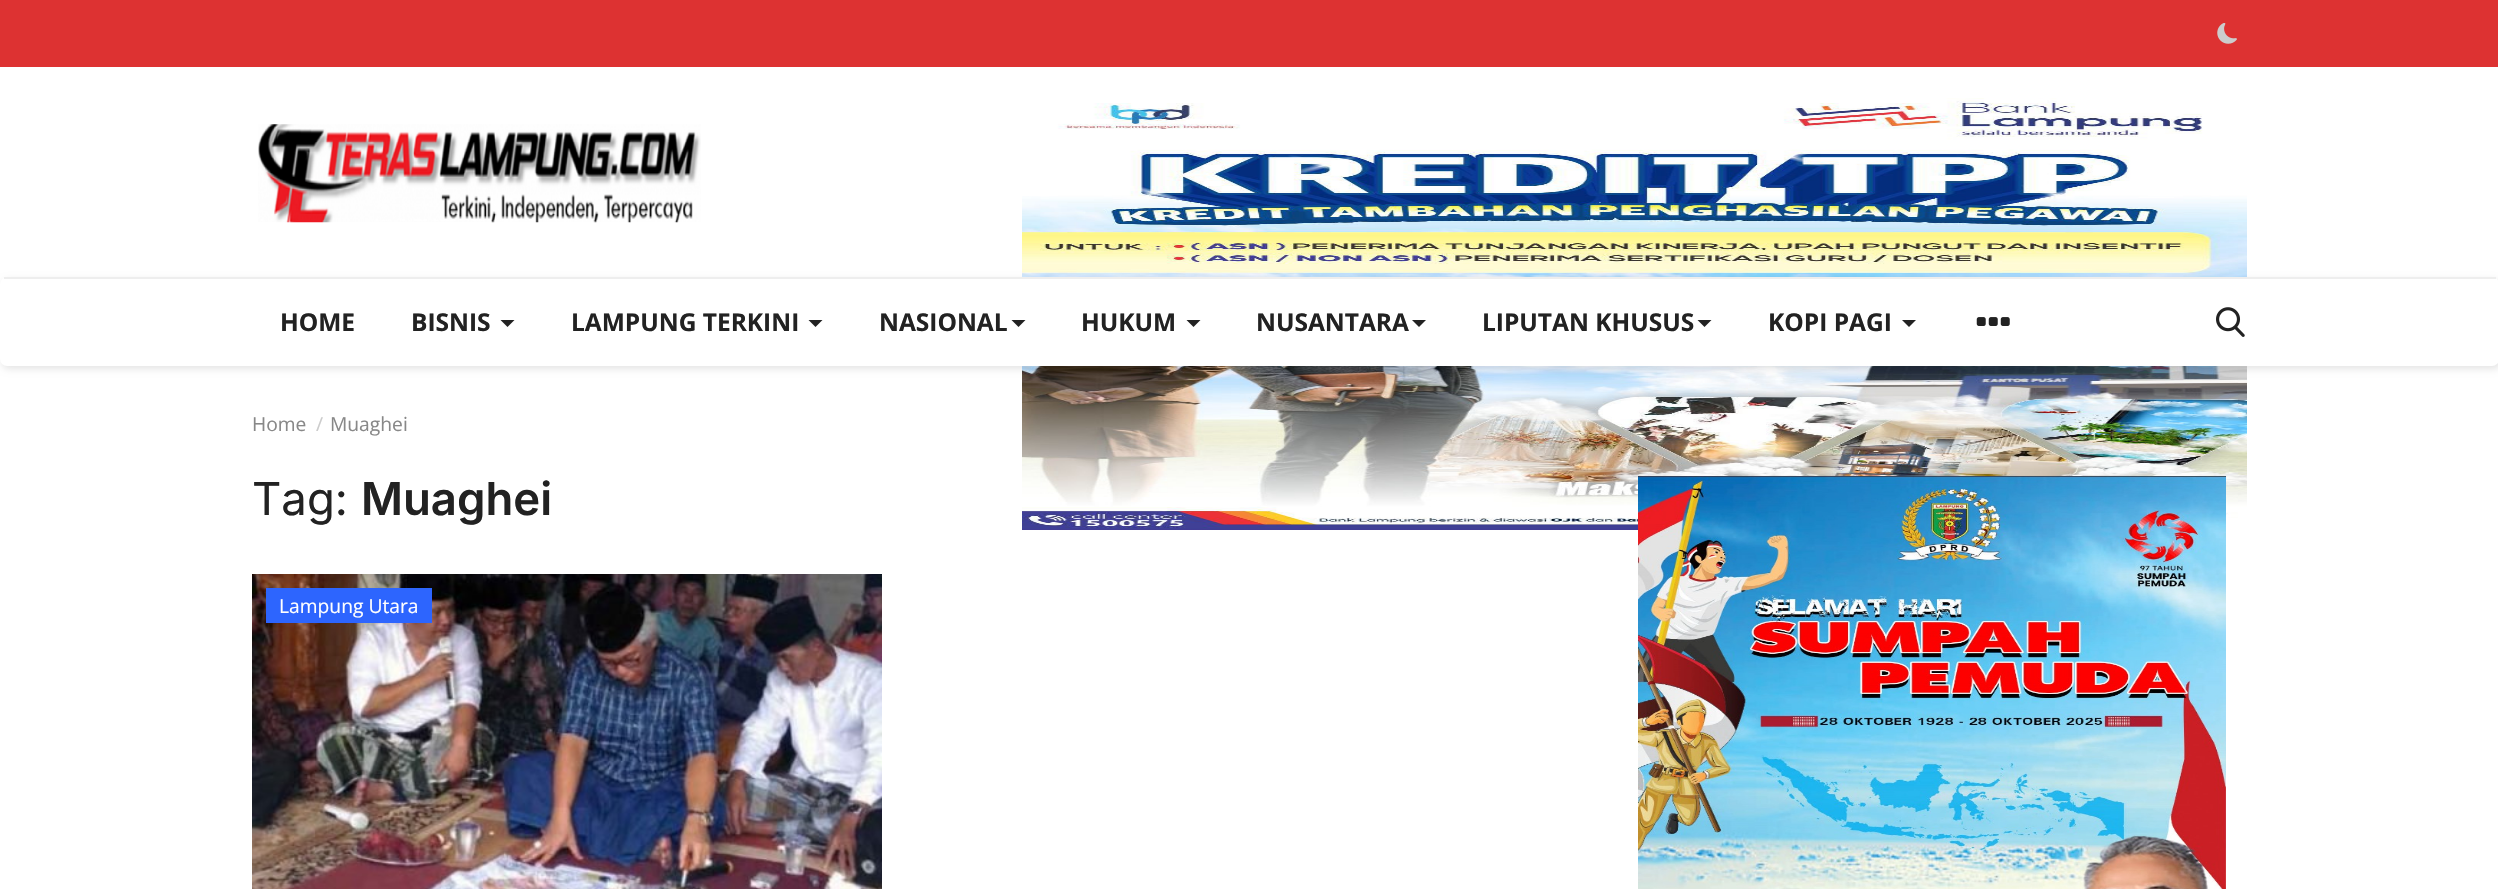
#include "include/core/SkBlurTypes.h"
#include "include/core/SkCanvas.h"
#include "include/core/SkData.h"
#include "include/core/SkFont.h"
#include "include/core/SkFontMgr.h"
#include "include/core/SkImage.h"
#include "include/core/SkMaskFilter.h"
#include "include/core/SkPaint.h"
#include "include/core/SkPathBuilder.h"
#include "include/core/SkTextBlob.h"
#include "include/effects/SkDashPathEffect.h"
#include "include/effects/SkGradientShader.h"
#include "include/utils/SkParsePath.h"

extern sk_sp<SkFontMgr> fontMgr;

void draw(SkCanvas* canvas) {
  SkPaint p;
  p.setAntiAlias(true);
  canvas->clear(SK_ColorWHITE);
  p.setColor(SkColorSetRGB(221, 50, 50));
  canvas->drawRect(SkRect::MakeLTRB(0, 0, 2498, 67), p);
  canvas->drawImageRect(SkImages::DeferredFromEncodedData(SkData::MakeFromFileName("images/1.png")), SkRect::MakeLTRB(2217, 23, 2237, 44), SkSamplingOptions());
  canvas->drawImageRect(SkImages::DeferredFromEncodedData(SkData::MakeFromFileName("images/2.png")), SkRect::MakeLTRB(258, 124, 701, 223), SkSamplingOptions());
  canvas->drawImageRect(SkImages::DeferredFromEncodedData(SkData::MakeFromFileName("images/3.png")), SkRect::MakeLTRB(1022, 98, 2247, 530), SkSamplingOptions());
  p.setColor(SkColorSetARGB(26, 0, 0, 0));
  p.setMaskFilter(SkMaskFilter::MakeBlur(kNormal_SkBlurStyle, 3.5f));
  canvas->drawRoundRect(SkRect::MakeLTRB(2, 280, 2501, 369), 7, 7, p);
  p.setMaskFilter(nullptr);
  p.setColor(SK_ColorWHITE);
  canvas->drawRoundRect(SkRect::MakeLTRB(0, 277, 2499, 366), 7, 7, p);
  p.setColor(SkColorSetRGB(238, 238, 238));
  canvas->drawRect(SkRect::MakeLTRB(4, 277, 2496, 279), p);
  p.setColor(SkColorSetRGB(34, 34, 34));
  canvas->drawPath(SkPathBuilder().moveTo(500.5f, 320).lineTo(514.5f, 320).lineTo(507.5f, 327).close().detach(), p);
  canvas->drawPath(SkPathBuilder().moveTo(808.5f, 320).lineTo(822.5f, 320).lineTo(815.5f, 327).close().detach(), p);
  canvas->drawPath(SkPathBuilder().moveTo(1011.5f, 320).lineTo(1025.5f, 320).lineTo(1018.5f, 327).close().detach(), p);
  canvas->drawPath(SkPathBuilder().moveTo(1186.5f, 320).lineTo(1200.5f, 320).lineTo(1193.5f, 327).close().detach(), p);
  canvas->drawPath(SkPathBuilder().moveTo(1412, 320).lineTo(1426, 320).lineTo(1419, 327).close().detach(), p);
  canvas->drawPath(SkPathBuilder().moveTo(1697.5f, 320).lineTo(1711.5f, 320).lineTo(1704.5f, 327).close().detach(), p);
  canvas->drawPath(SkPathBuilder().moveTo(1902, 320).lineTo(1916, 320).lineTo(1909, 327).close().detach(), p);
  canvas->drawImageRect(SkImages::DeferredFromEncodedData(SkData::MakeFromFileName("images/4.png")), SkRect::MakeLTRB(1976, 317, 2010, 326), SkSamplingOptions());
  canvas->drawImageRect(SkImages::DeferredFromEncodedData(SkData::MakeFromFileName("images/5.png")), SkRect::MakeLTRB(2216, 307, 2245, 337), SkSamplingOptions());
  canvas->drawImageRect(SkImages::DeferredFromEncodedData(SkData::MakeFromFileName("images/6.png")), SkRect::MakeLTRB(252, 574, 882, 889), SkSamplingOptions());
  p.setColor(SkColorSetRGB(45, 101, 254));
  canvas->drawRect(SkRect::MakeLTRB(266, 588, 432, 623), p);
  canvas->drawImageRect(SkImages::DeferredFromEncodedData(SkData::MakeFromFileName("images/7.png")), SkRect::MakeLTRB(1638, 476, 2226, 889), SkSamplingOptions());
  SkFont font1(fontMgr->matchFamilyStyle("Open Sans", SkFontStyle::Bold()), 24.5f);
  font1.setSubpixel(true);
  p.setColor(SkColorSetRGB(34, 34, 34));
  canvas->drawString("HOME", 280, 331, font1, p);
  canvas->drawString("BISNIS", 411, 331, font1, p);
  canvas->drawString("LAMPUNG TERKINI", 571, 331, font1, p);
  canvas->drawString("NASIONAL", 879, 331, font1, p);
  canvas->drawString("HUKUM", 1081, 331, font1, p);
  canvas->drawString("NUSANTARA", 1256, 331, font1, p);
  canvas->drawString("LIPUTAN KHUSUS", 1482, 331, font1, p);
  canvas->drawString("KOPI PAGI", 1768, 331, font1, p);
  SkFont font2(fontMgr->matchFamilyStyle("Open Sans", SkFontStyle::Normal()), 19.25f);
  font2.setSubpixel(true);
  p.setColor(SkColorSetRGB(136, 136, 136));
  canvas->drawString("Home", 252, 431, font2, p);
  p.setColor(SkColorSetRGB(204, 204, 204));
  canvas->drawString("/", 316, 431, font2, p);
  p.setColor(SkColorSetRGB(136, 136, 136));
  canvas->drawString("Muaghei", 330, 431, font2, p);
  SkFont font3(fontMgr->matchFamilyStyle("Inter", SkFontStyle::Normal()), 45.5f);
  font3.setSubpixel(true);
  p.setColor(SkColorSetRGB(34, 34, 34));
  canvas->drawString("Tag:", 252, 515, font3, p);
  SkFont font4(fontMgr->matchFamilyStyle("Inter", SkFontStyle(600, SkFontStyle::kNormal_Width, SkFontStyle::kUpright_Slant)), 45.5f);
  font4.setSubpixel(true);
  canvas->drawString("Muaghei", 361, 515, font4, p);
  p.setColor(SK_ColorWHITE);
  canvas->drawString("Lampung Utara", 279, 613, font2, p);
}
